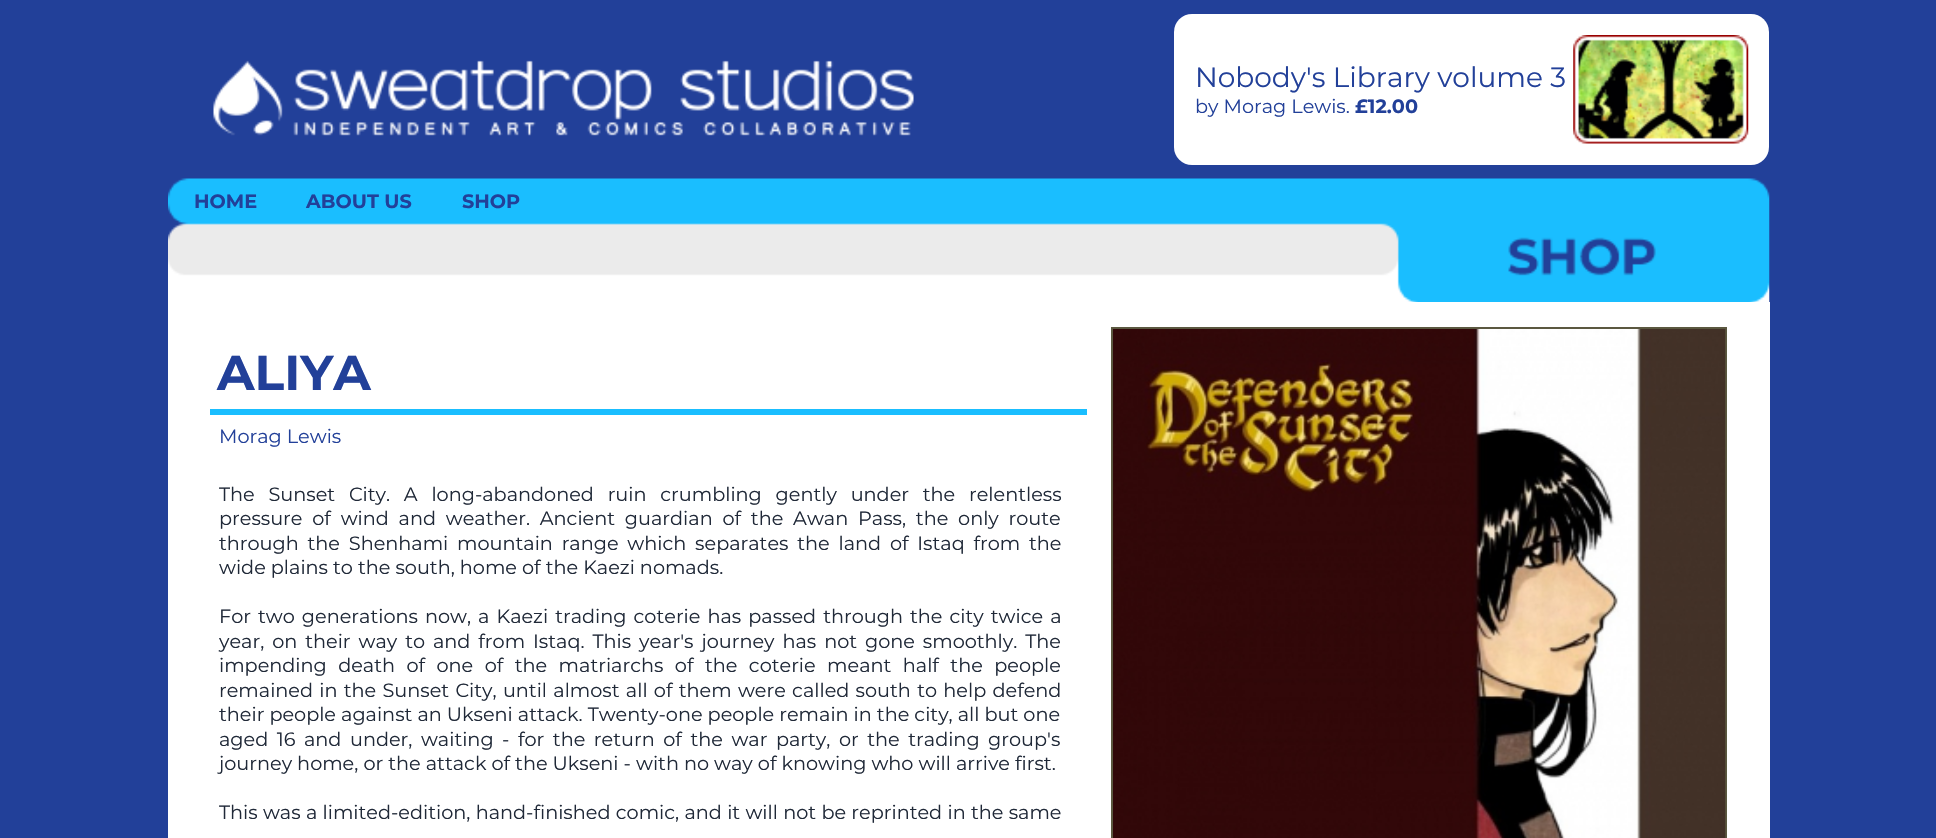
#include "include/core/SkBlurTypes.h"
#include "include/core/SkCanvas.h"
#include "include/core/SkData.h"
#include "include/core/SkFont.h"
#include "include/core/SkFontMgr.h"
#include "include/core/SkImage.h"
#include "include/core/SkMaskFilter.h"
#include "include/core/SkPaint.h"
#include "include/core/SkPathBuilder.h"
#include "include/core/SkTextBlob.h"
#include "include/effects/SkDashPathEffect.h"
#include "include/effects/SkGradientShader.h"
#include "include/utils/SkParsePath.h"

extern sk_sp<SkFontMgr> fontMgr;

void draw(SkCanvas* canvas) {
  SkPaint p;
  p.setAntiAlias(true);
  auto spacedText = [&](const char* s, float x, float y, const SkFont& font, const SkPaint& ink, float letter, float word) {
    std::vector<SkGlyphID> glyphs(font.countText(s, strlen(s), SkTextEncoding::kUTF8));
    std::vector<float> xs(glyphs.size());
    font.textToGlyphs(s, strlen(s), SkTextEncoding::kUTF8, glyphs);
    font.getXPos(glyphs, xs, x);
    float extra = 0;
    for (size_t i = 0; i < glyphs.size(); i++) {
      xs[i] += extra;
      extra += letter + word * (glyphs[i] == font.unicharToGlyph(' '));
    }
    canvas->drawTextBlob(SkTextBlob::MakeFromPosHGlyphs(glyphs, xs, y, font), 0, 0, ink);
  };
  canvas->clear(SkColorSetRGB(34, 64, 153));
  canvas->drawImageRect(SkImages::DeferredFromEncodedData(SkData::MakeFromFileName("images/1.png")), SkRect::MakeLTRB(168, 60, 1770, 302), SkSamplingOptions());
  p.setColor(SK_ColorWHITE);
  canvas->drawRoundRect(SkRect::MakeLTRB(1174, 14, 1769, 165), 18, 18, p);
  canvas->drawImageRect(SkImages::DeferredFromEncodedData(SkData::MakeFromFileName("images/2.png")), SkRect::MakeLTRB(1573, 35, 1749, 144), SkSamplingOptions());
  canvas->drawImageRect(SkImages::DeferredFromEncodedData(SkData::MakeFromFileName("images/3.png")), SkRect::MakeLTRB(1508, 237, 1656, 276), SkSamplingOptions());
  canvas->drawRect(SkRect::MakeLTRB(168, 302, 1770, 838), p);
  p.setColor(SkColorSetRGB(26, 190, 255));
  canvas->drawRect(SkRect::MakeLTRB(210, 409, 1087, 415), p);
  p.setStyle(SkPaint::kStroke_Style);
  p.setStrokeWidth(2);
  p.setColor(SkColorSetRGB(91, 88, 64));
  canvas->drawRect(SkRect::MakeLTRB(1112, 328, 1726, 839), p);
  canvas->drawImageRect(SkImages::DeferredFromEncodedData(SkData::MakeFromFileName("images/4.png")), SkRect::MakeLTRB(1113, 329, 1726, 838), SkSamplingOptions());
  SkFont font1(fontMgr->matchFamilyStyle("Montserrat", SkFontStyle::Normal()), 28);
  font1.setSubpixel(true);
  p.setStyle(SkPaint::kFill_Style);
  p.setColor(SkColorSetRGB(34, 64, 153));
  canvas->drawString("Nobody's Library volume 3", 1195, 87, font1, p);
  SkFont font2(fontMgr->matchFamilyStyle("Montserrat", SkFontStyle::Normal()), 19.25f);
  font2.setSubpixel(true);
  canvas->drawString("by Morag Lewis.", 1195, 113, font2, p);
  SkFont font3(fontMgr->matchFamilyStyle("Montserrat", SkFontStyle::Bold()), 19.25f);
  font3.setSubpixel(true);
  canvas->drawString("£12.00", 1355, 113, font3, p);
  canvas->drawString("HOME", 194, 208, font3, p);
  canvas->drawString("ABOUT US", 306, 208, font3, p);
  canvas->drawString("SHOP", 462, 208, font3, p);
  SkFont font4(fontMgr->matchFamilyStyle("Montserrat", SkFontStyle::Bold()), 49);
  font4.setSubpixel(true);
  canvas->drawString("ALIYA", 217, 390, font4, p);
  canvas->drawString("Morag Lewis", 219, 443, font2, p);
  p.setColor(SkColorSetRGB(32, 41, 56));
  spacedText("The Sunset City. A long-abandoned ruin crumbling gently under the relentless", 219, 501, font2, p, 0, 8.75f);
  spacedText("pressure of wind and weather. Ancient guardian of the Awan Pass, the only route", 219, 525, font2, p, 0, 4.75f);
  spacedText("through the Shenhami mountain range which separates the land of Istaq from the", 219, 550, font2, p, 0, 3.75f);
  canvas->drawString("wide plains to the south, home of the Kaezi nomads.", 219, 574, font2, p);
  spacedText("For two generations now, a Kaezi trading coterie has passed through the city twice a", 219, 623, font2, p, 0, 2);
  spacedText("year, on their way to and from Istaq. This year's journey has not gone smoothly. The", 219, 648, font2, p, 0, 2.9f);
  spacedText("impending death of one of the matriarchs of the coterie meant half the people", 219, 672, font2, p, 0, 6.4f);
  spacedText("remained in the Sunset City, until almost all of them were called south to help defend", 219, 697, font2, p, 0, 1.25f);
  canvas->drawString("their people against an Ukseni attack. Twenty-one people remain in the city, all but one", 219, 721, font2, p);
  spacedText("aged 16 and under, waiting - for the return of the war party, or the trading group's", 219, 746, font2, p, 0, 3.5f);
  canvas->drawString("journey home, or the attack of the Ukseni - with no way of knowing who will arrive first.", 219, 770, font2, p);
  spacedText("This was a limited-edition, hand-finished comic, and it will not be reprinted in the same", 219, 819, font2, p, 0, 0.25f);
}
